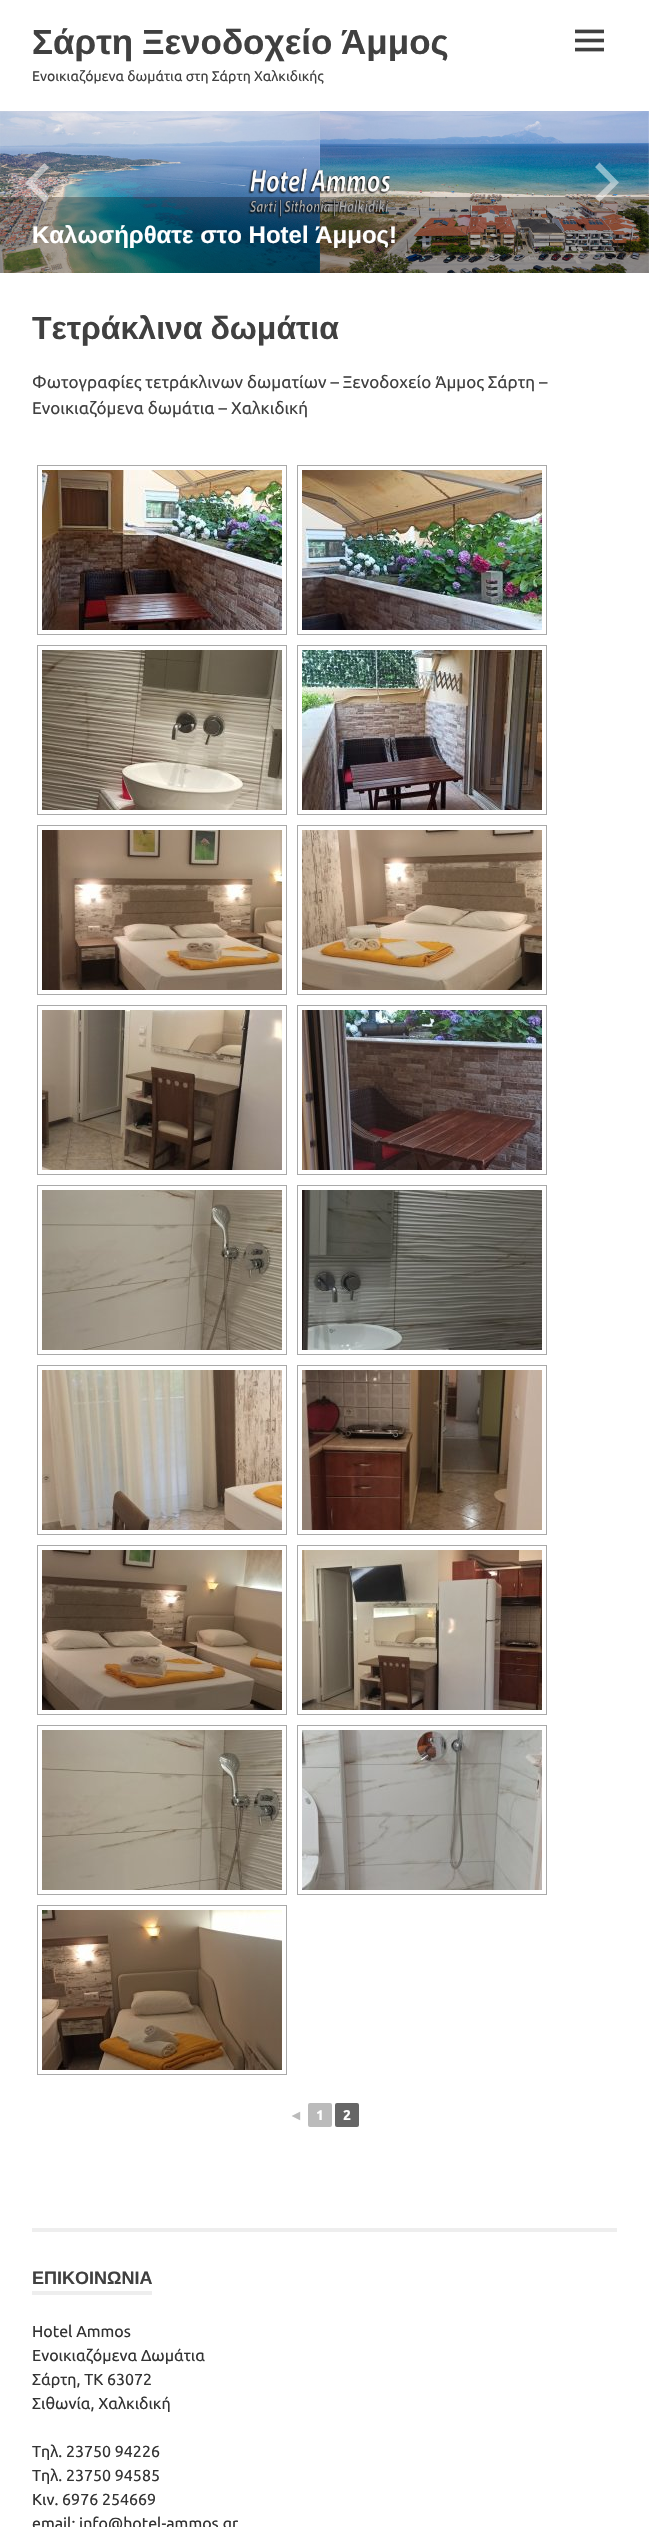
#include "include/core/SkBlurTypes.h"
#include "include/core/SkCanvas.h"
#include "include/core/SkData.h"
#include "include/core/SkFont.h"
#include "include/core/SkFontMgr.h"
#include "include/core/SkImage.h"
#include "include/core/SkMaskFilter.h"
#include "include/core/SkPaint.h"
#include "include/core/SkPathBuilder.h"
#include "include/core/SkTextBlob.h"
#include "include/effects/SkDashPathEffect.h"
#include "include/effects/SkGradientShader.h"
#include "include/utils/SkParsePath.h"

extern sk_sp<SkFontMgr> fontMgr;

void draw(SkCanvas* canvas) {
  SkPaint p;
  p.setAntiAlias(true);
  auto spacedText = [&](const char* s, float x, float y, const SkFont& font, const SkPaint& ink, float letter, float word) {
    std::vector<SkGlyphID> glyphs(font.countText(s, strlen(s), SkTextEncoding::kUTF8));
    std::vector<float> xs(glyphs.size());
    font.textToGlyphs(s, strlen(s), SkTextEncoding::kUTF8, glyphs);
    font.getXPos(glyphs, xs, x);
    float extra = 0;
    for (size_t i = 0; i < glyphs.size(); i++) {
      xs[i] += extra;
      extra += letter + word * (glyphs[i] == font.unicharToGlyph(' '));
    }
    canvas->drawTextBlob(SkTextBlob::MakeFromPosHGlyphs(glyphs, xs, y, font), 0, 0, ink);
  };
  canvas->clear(SK_ColorWHITE);
  canvas->drawImageRect(SkImages::DeferredFromEncodedData(SkData::MakeFromFileName("images/1.png")), SkRect::MakeLTRB(575, 29, 604, 52), SkSamplingOptions());
  canvas->drawImageRect(SkImages::DeferredFromEncodedData(SkData::MakeFromFileName("images/2.png")), SkRect::MakeLTRB(0, 111, 649, 273), SkSamplingOptions());
  p.setColor(SkColorSetARGB(77, 0, 0, 0));
  canvas->drawRect(SkRect::MakeLTRB(0, 197, 649, 273), p);
  p.setColor(SkColorSetARGB(128, 255, 255, 255));
  canvas->drawPath(SkPathBuilder().moveTo(49, 198).lineTo(44.5f, 202.5f).lineTo(25, 183).lineTo(44.5f, 163).lineTo(49, 167.5f).lineTo(33.5f, 183).close().detach(), p);
  canvas->drawPath(SkPathBuilder().moveTo(595, 167).lineTo(599.5f, 162.5f).lineTo(619, 182.5f).lineTo(599.5f, 202).lineTo(595, 197.5f).lineTo(610.5f, 182.5f).close().detach(), p);
  p.setStyle(SkPaint::kStroke_Style);
  p.setStrokeWidth(1);
  p.setColor(SkColorSetRGB(169, 169, 169));
  canvas->drawRect(SkRect::MakeLTRB(37.5f, 465.5f, 286.5f, 634.5f), p);
  canvas->drawImageRect(SkImages::DeferredFromEncodedData(SkData::MakeFromFileName("images/3.png")), SkRect::MakeLTRB(42, 470, 282, 630), SkSamplingOptions());
  canvas->drawRect(SkRect::MakeLTRB(297.5f, 465.5f, 546.5f, 634.5f), p);
  canvas->drawImageRect(SkImages::DeferredFromEncodedData(SkData::MakeFromFileName("images/4.png")), SkRect::MakeLTRB(302, 470, 542, 630), SkSamplingOptions());
  canvas->drawRect(SkRect::MakeLTRB(37.5f, 645.5f, 286.5f, 814.5f), p);
  canvas->drawImageRect(SkImages::DeferredFromEncodedData(SkData::MakeFromFileName("images/5.png")), SkRect::MakeLTRB(42, 650, 282, 810), SkSamplingOptions());
  canvas->drawRect(SkRect::MakeLTRB(297.5f, 645.5f, 546.5f, 814.5f), p);
  canvas->drawImageRect(SkImages::DeferredFromEncodedData(SkData::MakeFromFileName("images/6.png")), SkRect::MakeLTRB(302, 650, 542, 810), SkSamplingOptions());
  canvas->drawRect(SkRect::MakeLTRB(37.5f, 825.5f, 286.5f, 994.5f), p);
  canvas->drawImageRect(SkImages::DeferredFromEncodedData(SkData::MakeFromFileName("images/7.png")), SkRect::MakeLTRB(42, 830, 282, 990), SkSamplingOptions());
  canvas->drawRect(SkRect::MakeLTRB(297.5f, 825.5f, 546.5f, 994.5f), p);
  canvas->drawImageRect(SkImages::DeferredFromEncodedData(SkData::MakeFromFileName("images/8.png")), SkRect::MakeLTRB(302, 830, 542, 990), SkSamplingOptions());
  canvas->drawRect(SkRect::MakeLTRB(37.5f, 1005.5f, 286.5f, 1174.5f), p);
  canvas->drawImageRect(SkImages::DeferredFromEncodedData(SkData::MakeFromFileName("images/9.png")), SkRect::MakeLTRB(42, 1010, 282, 1170), SkSamplingOptions());
  canvas->drawRect(SkRect::MakeLTRB(297.5f, 1005.5f, 546.5f, 1174.5f), p);
  canvas->drawImageRect(SkImages::DeferredFromEncodedData(SkData::MakeFromFileName("images/10.png")), SkRect::MakeLTRB(302, 1010, 542, 1170), SkSamplingOptions());
  canvas->drawRect(SkRect::MakeLTRB(37.5f, 1185.5f, 286.5f, 1354.5f), p);
  canvas->drawImageRect(SkImages::DeferredFromEncodedData(SkData::MakeFromFileName("images/11.png")), SkRect::MakeLTRB(42, 1190, 282, 1350), SkSamplingOptions());
  canvas->drawRect(SkRect::MakeLTRB(297.5f, 1185.5f, 546.5f, 1354.5f), p);
  canvas->drawImageRect(SkImages::DeferredFromEncodedData(SkData::MakeFromFileName("images/12.png")), SkRect::MakeLTRB(302, 1190, 542, 1350), SkSamplingOptions());
  canvas->drawRect(SkRect::MakeLTRB(37.5f, 1365.5f, 286.5f, 1534.5f), p);
  canvas->drawImageRect(SkImages::DeferredFromEncodedData(SkData::MakeFromFileName("images/13.png")), SkRect::MakeLTRB(42, 1370, 282, 1530), SkSamplingOptions());
  canvas->drawRect(SkRect::MakeLTRB(297.5f, 1365.5f, 546.5f, 1534.5f), p);
  canvas->drawImageRect(SkImages::DeferredFromEncodedData(SkData::MakeFromFileName("images/14.png")), SkRect::MakeLTRB(302, 1370, 542, 1530), SkSamplingOptions());
  canvas->drawRect(SkRect::MakeLTRB(37.5f, 1545.5f, 286.5f, 1714.5f), p);
  canvas->drawImageRect(SkImages::DeferredFromEncodedData(SkData::MakeFromFileName("images/15.png")), SkRect::MakeLTRB(42, 1550, 282, 1710), SkSamplingOptions());
  canvas->drawRect(SkRect::MakeLTRB(297.5f, 1545.5f, 546.5f, 1714.5f), p);
  canvas->drawImageRect(SkImages::DeferredFromEncodedData(SkData::MakeFromFileName("images/16.png")), SkRect::MakeLTRB(302, 1550, 542, 1710), SkSamplingOptions());
  canvas->drawRect(SkRect::MakeLTRB(37.5f, 1725.5f, 286.5f, 1894.5f), p);
  canvas->drawImageRect(SkImages::DeferredFromEncodedData(SkData::MakeFromFileName("images/17.png")), SkRect::MakeLTRB(42, 1730, 282, 1890), SkSamplingOptions());
  canvas->drawRect(SkRect::MakeLTRB(297.5f, 1725.5f, 546.5f, 1894.5f), p);
  canvas->drawImageRect(SkImages::DeferredFromEncodedData(SkData::MakeFromFileName("images/18.png")), SkRect::MakeLTRB(302, 1730, 542, 1890), SkSamplingOptions());
  canvas->drawRect(SkRect::MakeLTRB(37.5f, 1905.5f, 286.5f, 2074.5f), p);
  canvas->drawImageRect(SkImages::DeferredFromEncodedData(SkData::MakeFromFileName("images/19.png")), SkRect::MakeLTRB(42, 1910, 282, 2070), SkSamplingOptions());
  p.setStyle(SkPaint::kFill_Style);
  p.setColor(SkColorSetRGB(187, 187, 187));
  canvas->drawRoundRect(SkRect::MakeLTRB(308, 2103, 332, 2127), 2, 2, p);
  p.setColor(SkColorSetRGB(102, 102, 102));
  canvas->drawRoundRect(SkRect::MakeLTRB(335, 2103, 359, 2127), 2, 2, p);
  p.setColor(SkColorSetRGB(238, 238, 238));
  canvas->drawRect(SkRect::MakeLTRB(32, 2228, 617, 2232), p);
  canvas->drawRect(SkRect::MakeLTRB(32, 2291, 152, 2295), p);
  SkFont font1(fontMgr->matchFamilyStyle("Liberation Sans", SkFontStyle::Bold()), 35);
  font1.setSubpixel(true);
  p.setColor(SkColorSetRGB(64, 64, 64));
  spacedText("Σάρτη Ξενοδοχείο Άμμος", 32, 54, font1, p, 0, -1);
  SkFont font2(fontMgr->matchFamilyStyle("Ubuntu", SkFontStyle::Normal()), 14);
  font2.setSubpixel(true);
  canvas->drawString("Ενοικιαζόμενα δωμάτια στη Σάρτη Χαλκιδικής", 32, 81, font2, p);
  SkFont font3(fontMgr->matchFamilyStyle("Liberation Sans", SkFontStyle::Bold()), 24);
  font3.setSubpixel(true);
  p.setColor(SK_ColorWHITE);
  canvas->drawString("Καλωσήρθατε στο Hotel Άμμος!", 32, 243, font3, p);
  SkFont font4(fontMgr->matchFamilyStyle("Liberation Sans", SkFontStyle::Bold()), 32);
  font4.setSubpixel(true);
  p.setColor(SkColorSetRGB(64, 64, 64));
  spacedText("Τετράκλινα δωμάτια", 32, 339, font4, p, 0, -1);
  SkFont font5(fontMgr->matchFamilyStyle("Ubuntu", SkFontStyle::Normal()), 17);
  font5.setSubpixel(true);
  canvas->drawString("Φωτογραφίες τετράκλινων δωματίων – Ξενοδοχείο Άμμος Σάρτη –", 32, 388, font5, p);
  canvas->drawString("Ενοικιαζόμενα δωμάτια – Χαλκιδική", 32, 414, font5, p);
  SkFont font6(fontMgr->matchFamilyStyle("Liberation Sans", SkFontStyle::Bold()), 14);
  font6.setSubpixel(true);
  p.setColor(SkColorSetRGB(187, 187, 187));
  canvas->drawString("◄", 289, 2120, font6, p);
  SkFont font7(fontMgr->matchFamilyStyle("Ubuntu", SkFontStyle::Bold()), 14);
  font7.setSubpixel(true);
  p.setColor(SK_ColorWHITE);
  canvas->drawString("1", 316, 2120, font7, p);
  canvas->drawString("2", 343, 2120, font7, p);
  SkFont font8(fontMgr->matchFamilyStyle("Liberation Sans", SkFontStyle::Bold()), 18);
  font8.setSubpixel(true);
  p.setColor(SkColorSetRGB(64, 64, 64));
  canvas->drawString("ΕΠΙΚΟΙΝΩΝΙΑ", 32, 2284, font8, p);
  SkFont font9(fontMgr->matchFamilyStyle("Ubuntu", SkFontStyle::Normal()), 16);
  font9.setSubpixel(true);
  p.setColor(SkColorSetRGB(51, 51, 51));
  canvas->drawString("Hotel Ammos", 32, 2337, font9, p);
  canvas->drawString("Ενοικιαζόμενα Δωμάτια", 32, 2361, font9, p);
  canvas->drawString("Σάρτη, ΤΚ 63072", 32, 2385, font9, p);
  canvas->drawString("Σιθωνία, Χαλκιδική", 32, 2409, font9, p);
  canvas->drawString("Τηλ. 23750 94226", 32, 2457, font9, p);
  canvas->drawString("Tηλ. 23750 94585", 32, 2481, font9, p);
  canvas->drawString("Κιν. 6976 254669", 32, 2505, font9, p);
  canvas->drawString("email: info@hotel-ammos.gr", 32, 2529, font9, p);
}
